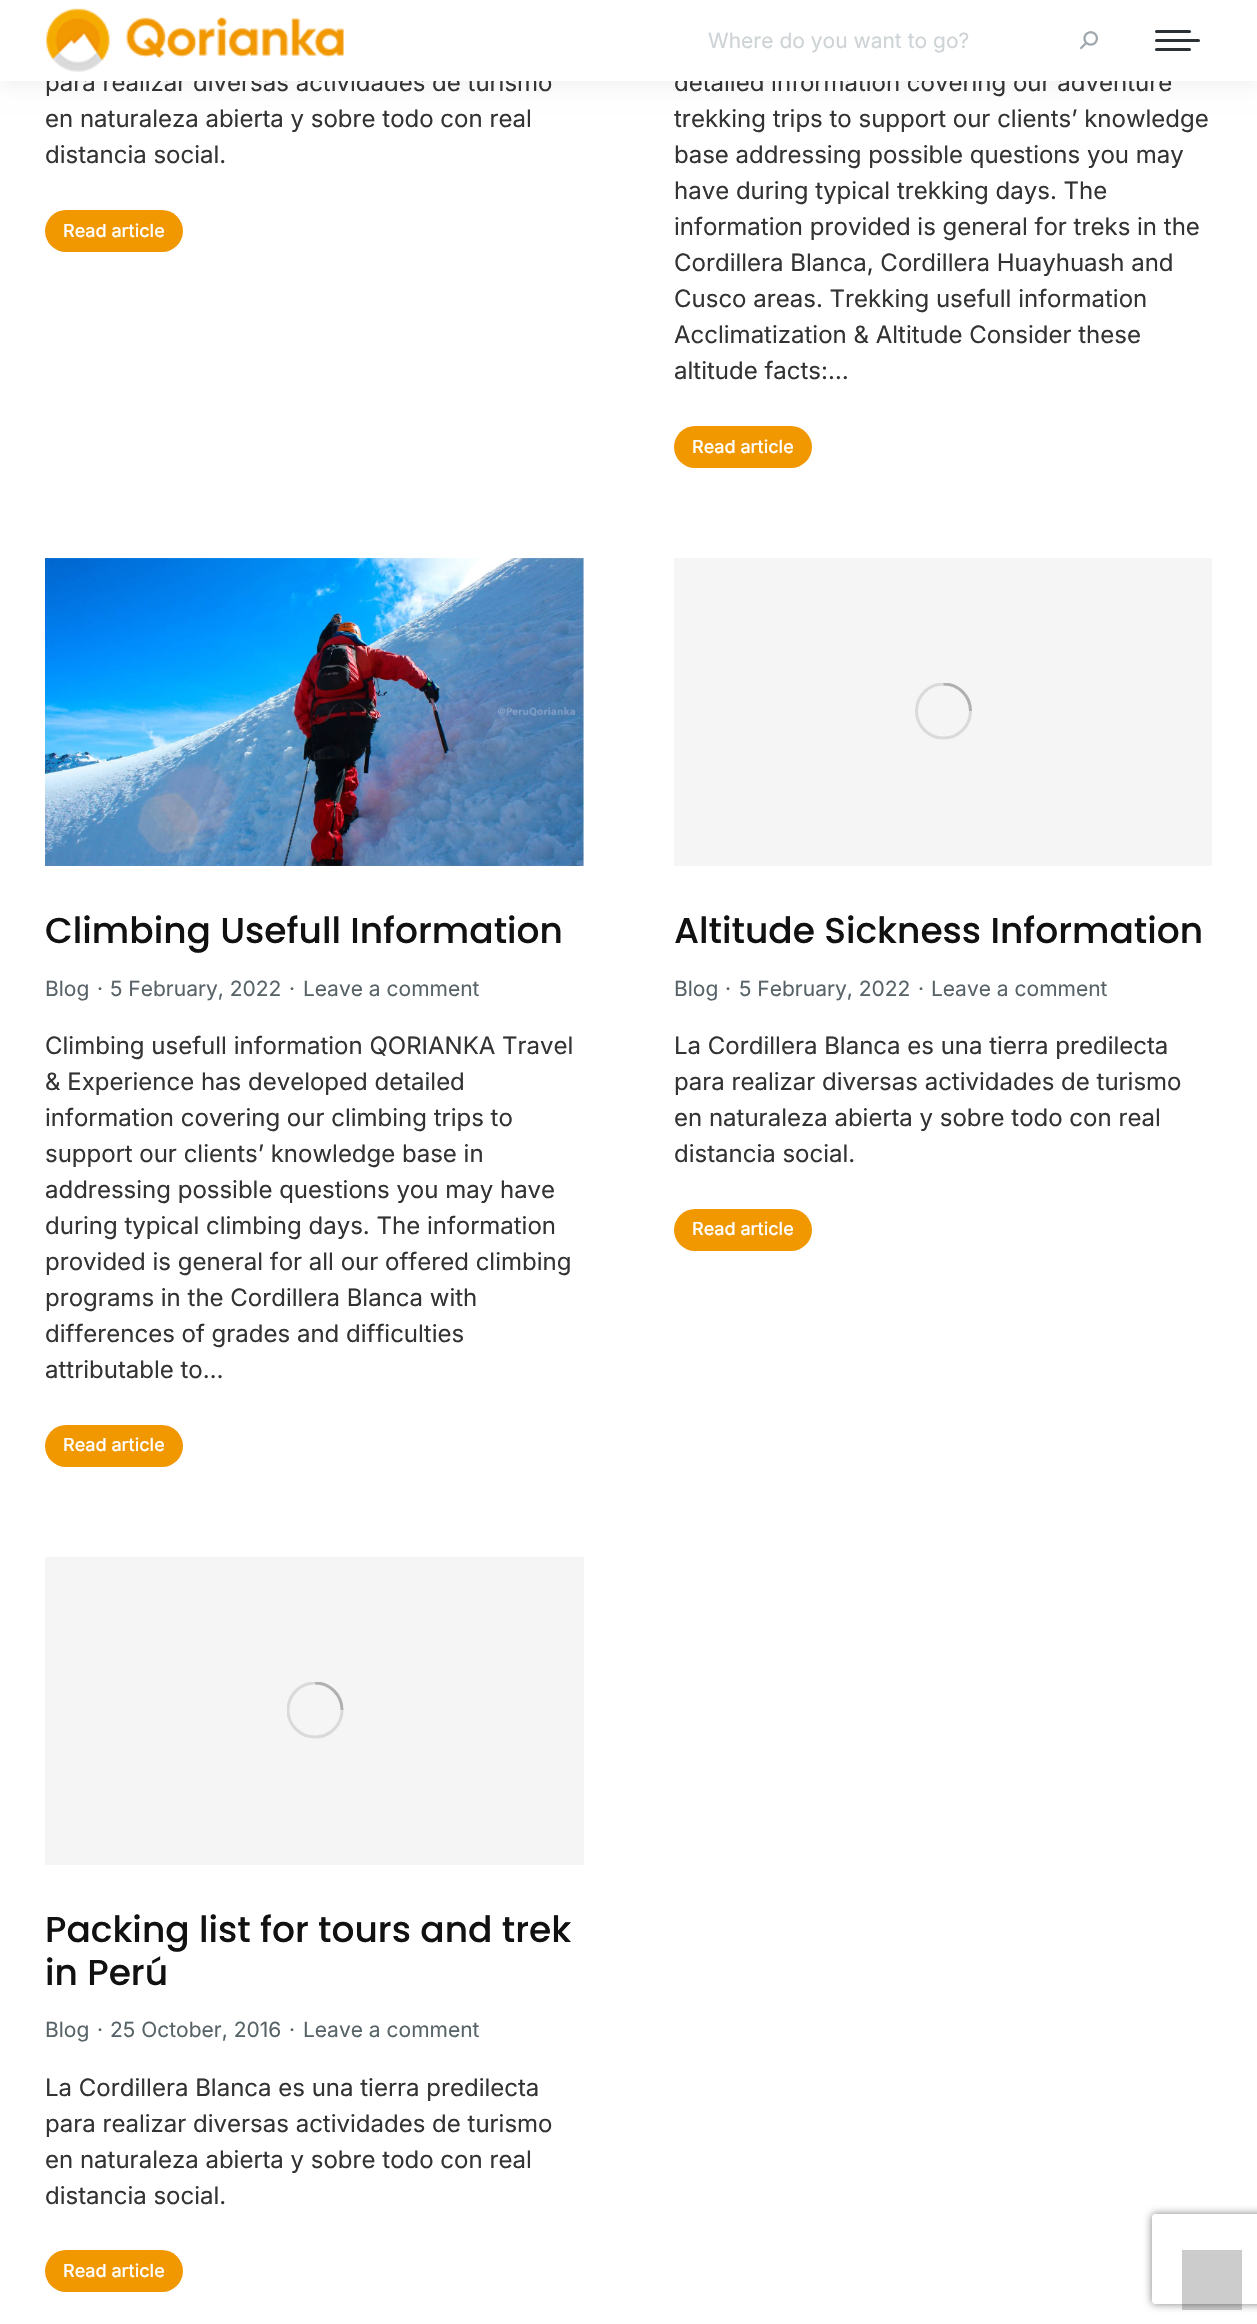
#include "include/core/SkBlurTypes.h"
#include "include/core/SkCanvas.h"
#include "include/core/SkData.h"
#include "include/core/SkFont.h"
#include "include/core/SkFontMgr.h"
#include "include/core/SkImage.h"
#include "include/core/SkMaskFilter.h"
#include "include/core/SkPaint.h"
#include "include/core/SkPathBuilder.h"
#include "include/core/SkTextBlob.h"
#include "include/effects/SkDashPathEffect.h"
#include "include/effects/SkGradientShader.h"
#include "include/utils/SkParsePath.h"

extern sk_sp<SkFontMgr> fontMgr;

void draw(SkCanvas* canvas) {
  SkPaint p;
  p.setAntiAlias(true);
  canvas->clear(SK_ColorWHITE);
  p.setColor(SkColorSetARGB(18, 0, 0, 0));
  p.setMaskFilter(SkMaskFilter::MakeBlur(kNormal_SkBlurStyle, 11));
  canvas->drawRect(SkRect::MakeLTRB(-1, -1, 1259, 83), p);
  p.setMaskFilter(nullptr);
  p.setColor(SkColorSetRGB(241, 151, 0));
  canvas->drawRoundRect(SkRect::MakeLTRB(45, 210, 183, 252), 21, 21, p);
  canvas->drawRoundRect(SkRect::MakeLTRB(674, 426, 812, 468), 21, 21, p);
  p.setColor(SkColorSetRGB(245, 245, 245));
  canvas->drawRect(SkRect::MakeLTRB(45, 558, 584, 866), p);
  canvas->drawImageRect(SkImages::DeferredFromEncodedData(SkData::MakeFromFileName("images/3.png")), SkRect::MakeLTRB(45, 558, 584, 866), SkSamplingOptions());
  p.setColor(SkColorSetRGB(241, 151, 0));
  canvas->drawRoundRect(SkRect::MakeLTRB(45, 1425, 183, 1467), 21, 21, p);
  p.setColor(SkColorSetRGB(245, 245, 245));
  canvas->drawRect(SkRect::MakeLTRB(674, 558, 1212, 866), p);
  canvas->save();
  canvas->clipRect(SkRect::MakeLTRB(915, 683, 972, 740));
  p.setStyle(SkPaint::kStroke_Style);
  p.setStrokeWidth(3);
  p.setColor(SkColorSetRGB(218, 218, 218));
  canvas->drawCircle(943.5f, 711, 27, p);
  p.setColor(SkColorSetARGB(64, 51, 51, 51));
  canvas->drawPath(SkPathBuilder().moveTo(970.5f, 711).cubicTo(970.5f, 696, 958.5f, 684, 943.5f, 684).detach(), p);
  canvas->restore();
  p.setStyle(SkPaint::kFill_Style);
  p.setColor(SkColorSetRGB(241, 151, 0));
  canvas->drawRoundRect(SkRect::MakeLTRB(674, 1209, 812, 1251), 21, 21, p);
  p.setColor(SkColorSetRGB(245, 245, 245));
  canvas->drawRect(SkRect::MakeLTRB(45, 1557, 584, 1865), p);
  canvas->save();
  canvas->clipRect(SkRect::MakeLTRB(287, 1682, 344, 1739));
  p.setStyle(SkPaint::kStroke_Style);
  p.setColor(SkColorSetRGB(218, 218, 218));
  canvas->drawCircle(315, 1710, 27, p);
  p.setColor(SkColorSetARGB(64, 51, 51, 51));
  canvas->drawPath(SkPathBuilder().moveTo(342, 1710).cubicTo(342, 1695, 330, 1683, 315, 1683).detach(), p);
  canvas->restore();
  p.setStyle(SkPaint::kFill_Style);
  p.setColor(SkColorSetRGB(241, 151, 0));
  canvas->drawRoundRect(SkRect::MakeLTRB(45, 2250, 183, 2292), 21, 21, p);
  canvas->save();
  canvas->clipPath(SkPathBuilder(SkPathFillType::kEvenOdd).moveTo(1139, 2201).lineTo(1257, 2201).lineTo(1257, 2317).lineTo(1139, 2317).close().moveTo(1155, 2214).lineTo(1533, 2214).cubicTo(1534.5f, 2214, 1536, 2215.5f, 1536, 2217).lineTo(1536, 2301).cubicTo(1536, 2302.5f, 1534.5f, 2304, 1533, 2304).lineTo(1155, 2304).cubicTo(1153.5f, 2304, 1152, 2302.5f, 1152, 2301).lineTo(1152, 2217).cubicTo(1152, 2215.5f, 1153.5f, 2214, 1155, 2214).close().detach(), true);
  p.setColor(SkColorSetRGB(128, 128, 128));
  p.setMaskFilter(SkMaskFilter::MakeBlur(kNormal_SkBlurStyle, 4));
  canvas->drawRoundRect(SkRect::MakeLTRB(1152, 2214, 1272, 2304), 3, 3, p);
  p.setMaskFilter(nullptr);
  canvas->restore();
  p.setColor(SkColorSetARGB(51, 0, 0, 0));
  canvas->drawRect(SkRect::MakeLTRB(1182, 2250, 1242, 2310), p);
  SkFont font1(fontMgr->matchFamilyStyle("Inter", SkFontStyle::Normal()), 24);
  font1.setSubpixel(true);
  p.setColor(SkColorSetRGB(51, 51, 51));
  canvas->drawString("para realizar diversas actividades de turismo", 45, 91, font1, p);
  canvas->drawString("en naturaleza abierta y sobre todo con real", 45, 127, font1, p);
  canvas->drawString("distancia social.", 45, 163, font1, p);
  SkFont font2(fontMgr->matchFamilyStyle("Inter", SkFontStyle(500, SkFontStyle::kNormal_Width, SkFontStyle::kUpright_Slant)), 18);
  font2.setSubpixel(true);
  p.setColor(SK_ColorWHITE);
  canvas->drawString("Read article", 63, 237, font2, p);
  p.setColor(SkColorSetRGB(51, 51, 51));
  canvas->drawString("detailed information covering our adventure", 674, 91, font1, p);
  p.setColor(SK_ColorWHITE);
  canvas->drawRect(SkRect::MakeLTRB(0, 0, 1257, 81), p);
  canvas->drawImageRect(SkImages::DeferredFromEncodedData(SkData::MakeFromFileName("images/2.png")), SkRect::MakeLTRB(1080, 31, 1098, 50), SkSamplingOptions());
  SkFont font3(fontMgr->matchFamilyStyle("Inter", SkFontStyle::Normal()), 21);
  font3.setSubpixel(true);
  p.setColor(SkColorSetRGB(206, 211, 214));
  canvas->drawString("Where do you want to go?", 708, 48, font3, p);
  p.setColor(SkColorSetRGB(43, 49, 53));
  canvas->drawRoundRect(SkRect::MakeLTRB(1155, 48, 1191, 51), 1.5f, 1.5f, p);
  canvas->drawRoundRect(SkRect::MakeLTRB(1155, 39, 1200, 42), 1.5f, 1.5f, p);
  canvas->drawRoundRect(SkRect::MakeLTRB(1155, 30, 1191, 33), 1.5f, 1.5f, p);
  canvas->drawImageRect(SkImages::DeferredFromEncodedData(SkData::MakeFromFileName("images/1.png")), SkRect::MakeLTRB(46, 8, 344, 72), SkSamplingOptions());
  p.setColor(SkColorSetRGB(51, 51, 51));
  canvas->drawString("trekking trips to support our clients’ knowledge", 674, 127, font1, p);
  canvas->drawString("base addressing possible questions you may", 674, 163, font1, p);
  canvas->drawString("have during typical trekking days. The", 674, 199, font1, p);
  canvas->drawString("information provided is general for treks in the", 674, 235, font1, p);
  canvas->drawString("Cordillera Blanca, Cordillera Huayhuash and", 674, 271, font1, p);
  canvas->drawString("Cusco areas. Trekking usefull information", 674, 307, font1, p);
  canvas->drawString("Acclimatization & Altitude Consider these", 674, 343, font1, p);
  canvas->drawString("altitude facts:…", 674, 379, font1, p);
  p.setColor(SK_ColorWHITE);
  canvas->drawString("Read article", 692, 453, font2, p);
  SkFont font4(fontMgr->matchFamilyStyle("Poppins", SkFontStyle(500, SkFontStyle::kNormal_Width, SkFontStyle::kUpright_Slant)), 36);
  font4.setSubpixel(true);
  p.setColor(SkColorSetRGB(17, 17, 17));
  canvas->drawString("Climbing Usefull Information", 45, 943, font4, p);
  p.setColor(SkColorSetRGB(88, 99, 104));
  canvas->drawString("Blog", 45, 996, font3, p);
  canvas->drawString("·", 97, 996, font3, p);
  canvas->drawString("5 February, 2022", 110, 996, font3, p);
  canvas->drawString("·", 289, 996, font3, p);
  canvas->drawString("Leave a comment", 303, 996, font3, p);
  p.setColor(SkColorSetRGB(51, 51, 51));
  canvas->drawString("Climbing usefull information QORIANKA Travel", 45, 1054, font1, p);
  canvas->drawString("& Experience has developed detailed", 45, 1090, font1, p);
  canvas->drawString("information covering our climbing trips to", 45, 1126, font1, p);
  canvas->drawString("support our clients’ knowledge base in", 45, 1162, font1, p);
  canvas->drawString("addressing possible questions you may have", 45, 1198, font1, p);
  canvas->drawString("during typical climbing days. The information", 45, 1234, font1, p);
  canvas->drawString("provided is general for all our offered climbing", 45, 1270, font1, p);
  canvas->drawString("programs in the Cordillera Blanca with", 45, 1306, font1, p);
  canvas->drawString("differences of grades and difficulties", 45, 1342, font1, p);
  canvas->drawString("attributable to…", 45, 1378, font1, p);
  p.setColor(SK_ColorWHITE);
  canvas->drawString("Read article", 63, 1451, font2, p);
  p.setColor(SkColorSetRGB(17, 17, 17));
  canvas->drawString("Altitude Sickness Information", 674, 943, font4, p);
  p.setColor(SkColorSetRGB(88, 99, 104));
  canvas->drawString("Blog", 674, 996, font3, p);
  canvas->drawString("·", 725, 996, font3, p);
  canvas->drawString("5 February, 2022", 739, 996, font3, p);
  canvas->drawString("·", 918, 996, font3, p);
  canvas->drawString("Leave a comment", 931, 996, font3, p);
  p.setColor(SkColorSetRGB(51, 51, 51));
  canvas->drawString("La Cordillera Blanca es una tierra predilecta", 674, 1054, font1, p);
  canvas->drawString("para realizar diversas actividades de turismo", 674, 1090, font1, p);
  canvas->drawString("en naturaleza abierta y sobre todo con real", 674, 1126, font1, p);
  canvas->drawString("distancia social.", 674, 1162, font1, p);
  p.setColor(SK_ColorWHITE);
  canvas->drawString("Read article", 692, 1235, font2, p);
  p.setColor(SkColorSetRGB(17, 17, 17));
  canvas->drawString("Packing list for tours and trek", 45, 1942, font4, p);
  canvas->drawString("in Perú", 45, 1985, font4, p);
  p.setColor(SkColorSetRGB(88, 99, 104));
  canvas->drawString("Blog", 45, 2037, font3, p);
  canvas->drawString("·", 97, 2037, font3, p);
  canvas->drawString("25 October, 2016", 110, 2037, font3, p);
  canvas->drawString("·", 289, 2037, font3, p);
  canvas->drawString("Leave a comment", 303, 2037, font3, p);
  p.setColor(SkColorSetRGB(51, 51, 51));
  canvas->drawString("La Cordillera Blanca es una tierra predilecta", 45, 2096, font1, p);
  canvas->drawString("para realizar diversas actividades de turismo", 45, 2132, font1, p);
  canvas->drawString("en naturaleza abierta y sobre todo con real", 45, 2168, font1, p);
  canvas->drawString("distancia social.", 45, 2204, font1, p);
  p.setColor(SK_ColorWHITE);
  canvas->drawString("Read article", 63, 2277, font2, p);
}
